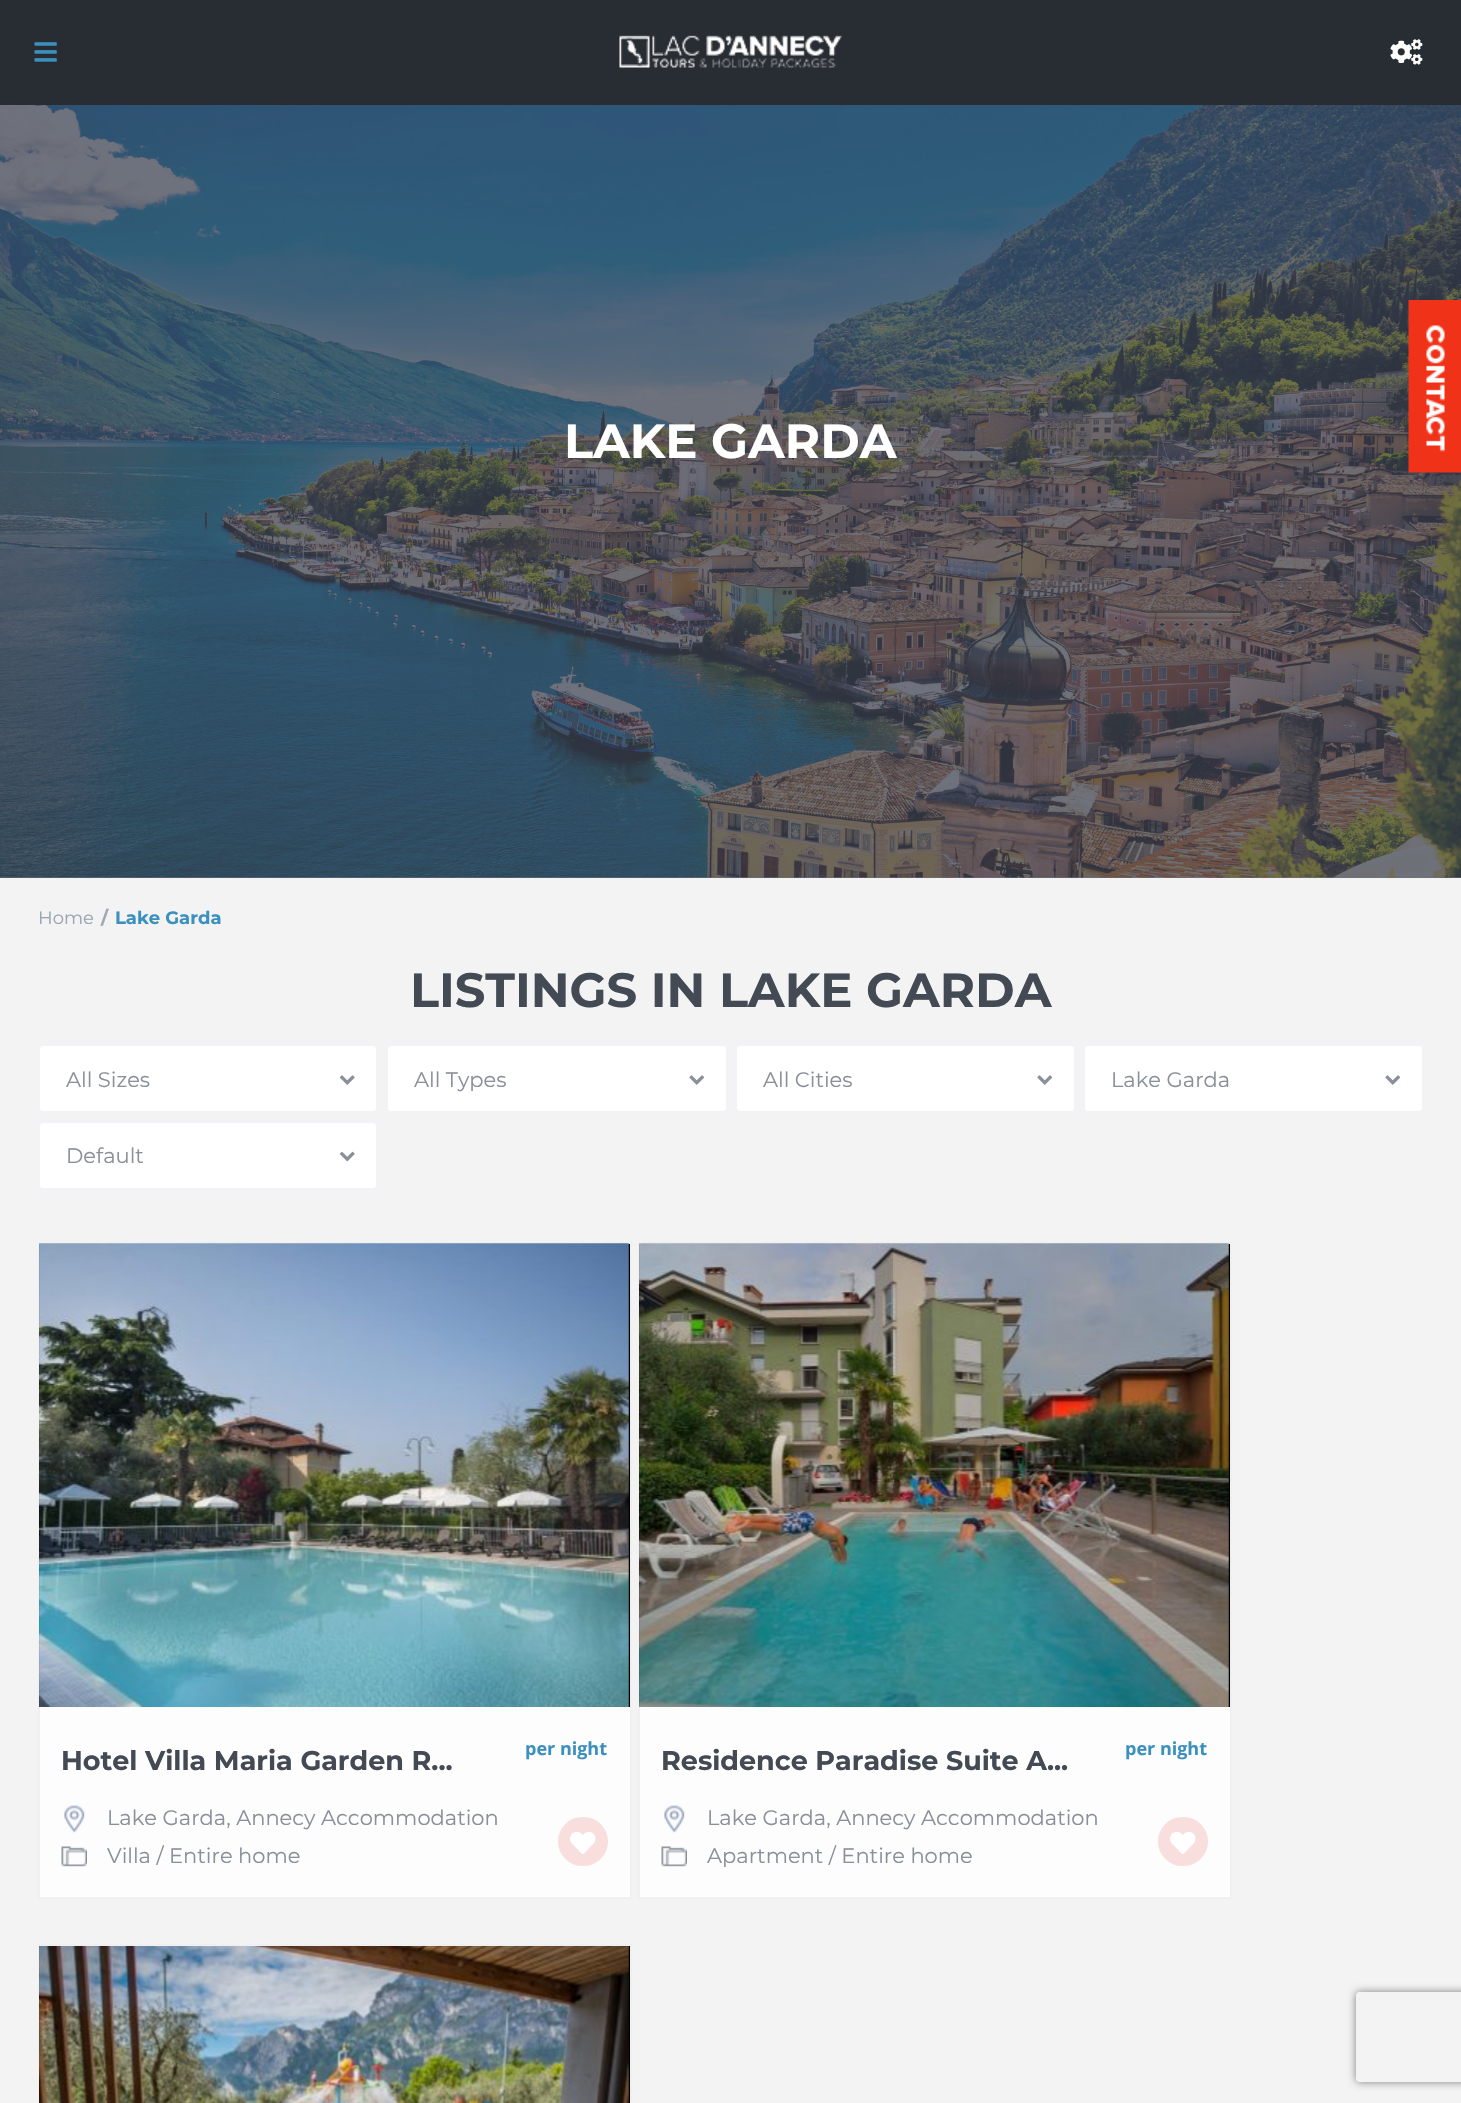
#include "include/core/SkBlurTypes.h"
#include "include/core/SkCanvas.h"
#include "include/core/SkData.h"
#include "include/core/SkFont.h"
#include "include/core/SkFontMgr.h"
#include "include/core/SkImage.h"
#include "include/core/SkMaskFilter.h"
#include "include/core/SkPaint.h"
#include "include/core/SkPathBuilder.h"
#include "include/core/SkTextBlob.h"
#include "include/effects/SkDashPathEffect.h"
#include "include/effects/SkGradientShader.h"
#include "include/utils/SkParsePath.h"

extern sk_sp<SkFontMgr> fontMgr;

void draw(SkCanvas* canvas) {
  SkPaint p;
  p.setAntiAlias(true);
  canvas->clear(SkColorSetRGB(243, 243, 243));
  p.setColor(SkColorSetRGB(40, 45, 51));
  canvas->drawRect(SkRect::MakeLTRB(0, 0, 1461, 105), p);
  canvas->drawImageRect(SkImages::DeferredFromEncodedData(SkData::MakeFromFileName("images/1.png")), SkRect::MakeLTRB(34, 42, 57, 62), SkSamplingOptions());
  canvas->drawImageRect(SkImages::DeferredFromEncodedData(SkData::MakeFromFileName("images/2.png")), SkRect::MakeLTRB(619, 35, 842, 68), SkSamplingOptions());
  canvas->drawImageRect(SkImages::DeferredFromEncodedData(SkData::MakeFromFileName("images/3.png")), SkRect::MakeLTRB(1390, 39, 1423, 65), SkSamplingOptions());
  p.setColor(SkColorSetRGB(110, 114, 126));
  canvas->drawRect(SkRect::MakeLTRB(0, 877, 1461, 878), p);
  canvas->drawImageRect(SkImages::DeferredFromEncodedData(SkData::MakeFromFileName("images/4.png")), SkRect::MakeLTRB(0, 105, 1461, 878), SkSamplingOptions());
  canvas->drawImageRect(SkImages::DeferredFromEncodedData(SkData::MakeFromFileName("images/5.png")), SkRect::MakeLTRB(1408, 300, 1461, 473), SkSamplingOptions());
  p.setColor(SK_ColorWHITE);
  canvas->drawRoundRect(SkRect::MakeLTRB(39, 1045, 377, 1112), 4, 4, p);
  p.setStyle(SkPaint::kStroke_Style);
  p.setStrokeWidth(2);
  p.setColor(SkColorSetRGB(241, 243, 247));
  canvas->drawRoundRect(SkRect::MakeLTRB(39, 1045, 377, 1112), 4, 4, p);
  canvas->drawImageRect(SkImages::DeferredFromEncodedData(SkData::MakeFromFileName("images/6.png")), SkRect::MakeLTRB(339, 1075, 355, 1085), SkSamplingOptions());
  p.setStyle(SkPaint::kFill_Style);
  p.setColor(SK_ColorWHITE);
  canvas->drawRoundRect(SkRect::MakeLTRB(387, 1045, 727, 1112), 4, 4, p);
  p.setStyle(SkPaint::kStroke_Style);
  p.setColor(SkColorSetRGB(241, 243, 247));
  canvas->drawRoundRect(SkRect::MakeLTRB(387, 1045, 727, 1112), 4, 4, p);
  canvas->drawImageRect(SkImages::DeferredFromEncodedData(SkData::MakeFromFileName("images/7.png")), SkRect::MakeLTRB(689, 1075, 705, 1085), SkSamplingOptions());
  p.setStyle(SkPaint::kFill_Style);
  p.setColor(SK_ColorWHITE);
  canvas->drawRoundRect(SkRect::MakeLTRB(736, 1045, 1075, 1112), 4, 4, p);
  p.setStyle(SkPaint::kStroke_Style);
  p.setColor(SkColorSetRGB(241, 243, 247));
  canvas->drawRoundRect(SkRect::MakeLTRB(736, 1045, 1075, 1112), 4, 4, p);
  canvas->drawImageRect(SkImages::DeferredFromEncodedData(SkData::MakeFromFileName("images/7.png")), SkRect::MakeLTRB(1037, 1075, 1053, 1085), SkSamplingOptions());
  p.setStyle(SkPaint::kFill_Style);
  p.setColor(SK_ColorWHITE);
  canvas->drawRoundRect(SkRect::MakeLTRB(1084, 1045, 1423, 1112), 4, 4, p);
  p.setStyle(SkPaint::kStroke_Style);
  p.setColor(SkColorSetRGB(241, 243, 247));
  canvas->drawRoundRect(SkRect::MakeLTRB(1084, 1045, 1423, 1112), 4, 4, p);
  canvas->drawImageRect(SkImages::DeferredFromEncodedData(SkData::MakeFromFileName("images/7.png")), SkRect::MakeLTRB(1385, 1075, 1401, 1085), SkSamplingOptions());
  p.setStyle(SkPaint::kFill_Style);
  p.setColor(SK_ColorWHITE);
  canvas->drawRoundRect(SkRect::MakeLTRB(39, 1122, 377, 1189), 4, 4, p);
  p.setStyle(SkPaint::kStroke_Style);
  p.setColor(SkColorSetRGB(241, 243, 247));
  canvas->drawRoundRect(SkRect::MakeLTRB(39, 1122, 377, 1189), 4, 4, p);
  canvas->drawImageRect(SkImages::DeferredFromEncodedData(SkData::MakeFromFileName("images/8.png")), SkRect::MakeLTRB(339, 1151, 355, 1162), SkSamplingOptions());
  p.setStyle(SkPaint::kFill_Style);
  p.setColor(SkColorSetRGB(253, 253, 253));
  canvas->drawRect(SkRect::MakeLTRB(40, 1707, 630, 1897), p);
  p.setStyle(SkPaint::kStroke_Style);
  p.setColor(SkColorSetRGB(240, 240, 240));
  canvas->drawRect(SkRect::MakeLTRB(39, 1243, 631, 1898), p);
  p.setStyle(SkPaint::kFill_Style);
  p.setColor(SK_ColorBLACK);
  canvas->drawRect(SkRect::MakeLTRB(39, 1244, 630, 1707), p);
  canvas->drawImageRect(SkImages::DeferredFromEncodedData(SkData::MakeFromFileName("images/9.png")), SkRect::MakeLTRB(39, 1243, 629, 1707), SkSamplingOptions());
  canvas->drawImageRect(SkImages::DeferredFromEncodedData(SkData::MakeFromFileName("images/10.png")), SkRect::MakeLTRB(39, 1243, 629, 1707), SkSamplingOptions());
  canvas->drawImageRect(SkImages::DeferredFromEncodedData(SkData::MakeFromFileName("images/11.png")), SkRect::MakeLTRB(64, 1805, 85, 1833), SkSamplingOptions());
  canvas->drawImageRect(SkImages::DeferredFromEncodedData(SkData::MakeFromFileName("images/12.png")), SkRect::MakeLTRB(61, 1846, 87, 1867), SkSamplingOptions());
  p.setColor(SkColorSetRGB(248, 222, 221));
  canvas->drawRoundRect(SkRect::MakeLTRB(558, 1817, 608, 1866), 24.5f, 24.5f, p);
  canvas->drawImageRect(SkImages::DeferredFromEncodedData(SkData::MakeFromFileName("images/13.png")), SkRect::MakeLTRB(570, 1831, 596, 1854), SkSamplingOptions());
  p.setColor(SkColorSetRGB(253, 253, 253));
  canvas->drawRect(SkRect::MakeLTRB(640, 1707, 1230, 1897), p);
  p.setStyle(SkPaint::kStroke_Style);
  p.setColor(SkColorSetRGB(240, 240, 240));
  canvas->drawRect(SkRect::MakeLTRB(639, 1243, 1231, 1898), p);
  p.setStyle(SkPaint::kFill_Style);
  p.setColor(SK_ColorBLACK);
  canvas->drawRect(SkRect::MakeLTRB(639, 1244, 1230, 1707), p);
  canvas->drawImageRect(SkImages::DeferredFromEncodedData(SkData::MakeFromFileName("images/14.png")), SkRect::MakeLTRB(639, 1243, 1229, 1707), SkSamplingOptions());
  canvas->drawImageRect(SkImages::DeferredFromEncodedData(SkData::MakeFromFileName("images/15.png")), SkRect::MakeLTRB(639, 1243, 1229, 1707), SkSamplingOptions());
  canvas->drawImageRect(SkImages::DeferredFromEncodedData(SkData::MakeFromFileName("images/11.png")), SkRect::MakeLTRB(664, 1805, 685, 1833), SkSamplingOptions());
  canvas->drawImageRect(SkImages::DeferredFromEncodedData(SkData::MakeFromFileName("images/12.png")), SkRect::MakeLTRB(661, 1846, 687, 1867), SkSamplingOptions());
  p.setColor(SkColorSetRGB(248, 222, 221));
  canvas->drawRoundRect(SkRect::MakeLTRB(1158, 1817, 1208, 1866), 24.5f, 24.5f, p);
  canvas->drawImageRect(SkImages::DeferredFromEncodedData(SkData::MakeFromFileName("images/13.png")), SkRect::MakeLTRB(1170, 1831, 1196, 1854), SkSamplingOptions());
  p.setStyle(SkPaint::kStroke_Style);
  p.setColor(SkColorSetRGB(240, 240, 240));
  canvas->drawRect(SkRect::MakeLTRB(39, 1945, 631, 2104), p);
  p.setStyle(SkPaint::kFill_Style);
  p.setColor(SK_ColorBLACK);
  canvas->drawRect(SkRect::MakeLTRB(39, 1946, 630, 2103), p);
  canvas->drawImageRect(SkImages::DeferredFromEncodedData(SkData::MakeFromFileName("images/16.png")), SkRect::MakeLTRB(39, 1946, 629, 2103), SkSamplingOptions());
  canvas->drawImageRect(SkImages::DeferredFromEncodedData(SkData::MakeFromFileName("images/17.png")), SkRect::MakeLTRB(39, 1946, 629, 2103), SkSamplingOptions());
  canvas->save();
  canvas->clipPath(SkPathBuilder(SkPathFillType::kEvenOdd).moveTo(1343, 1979).lineTo(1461, 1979).lineTo(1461, 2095).lineTo(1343, 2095).close().moveTo(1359, 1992).lineTo(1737, 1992).cubicTo(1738.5f, 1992, 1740, 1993.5f, 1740, 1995).lineTo(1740, 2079).cubicTo(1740, 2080.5f, 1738.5f, 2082, 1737, 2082).lineTo(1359, 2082).cubicTo(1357.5f, 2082, 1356, 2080.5f, 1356, 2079).lineTo(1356, 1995).cubicTo(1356, 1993.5f, 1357.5f, 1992, 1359, 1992).close().detach(), true);
  p.setColor(SkColorSetRGB(128, 128, 128));
  p.setMaskFilter(SkMaskFilter::MakeBlur(kNormal_SkBlurStyle, 4));
  canvas->drawRoundRect(SkRect::MakeLTRB(1356, 1992, 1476, 2082), 3, 3, p);
  p.setMaskFilter(nullptr);
  canvas->restore();
  SkFont font1(fontMgr->matchFamilyStyle("Montserrat", SkFontStyle::Bold()), 48);
  font1.setSubpixel(true);
  p.setColor(SK_ColorWHITE);
  canvas->drawString("LAKE GARDA", 564, 458, font1, p);
  SkFont font2(fontMgr->matchFamilyStyle("Montserrat", SkFontStyle::Normal()), 18);
  font2.setSubpixel(true);
  p.setColor(SkColorSetRGB(153, 163, 177));
  canvas->drawString("Home", 38, 924, font2, p);
  SkFont font3(fontMgr->matchFamilyStyle("Montserrat", SkFontStyle::Bold()), 18);
  font3.setSubpixel(true);
  p.setColor(SkColorSetRGB(161, 167, 180));
  canvas->drawString("/", 101, 924, font3, p);
  p.setColor(SkColorSetRGB(60, 144, 190));
  canvas->drawString("Lake Garda", 115, 924, font3, p);
  p.setColor(SkColorSetRGB(67, 74, 84));
  canvas->drawString("LISTINGS IN LAKE GARDA", 410, 1007, font1, p);
  SkFont font4(fontMgr->matchFamilyStyle("Montserrat", SkFontStyle::Normal()), 21);
  font4.setSubpixel(true);
  p.setColor(SkColorSetRGB(138, 143, 154));
  canvas->drawString("All Sizes", 66, 1087, font4, p);
  canvas->drawString("All Types", 414, 1087, font4, p);
  canvas->drawString("All Cities", 763, 1087, font4, p);
  canvas->drawString("Lake Garda", 1111, 1087, font4, p);
  canvas->drawString("Default", 66, 1163, font4, p);
  SkFont font5(fontMgr->matchFamilyStyle("Montserrat", SkFontStyle::Bold()), 27);
  font5.setSubpixel(true);
  p.setColor(SkColorSetRGB(67, 74, 84));
  canvas->drawString("Hotel Villa Maria Garden R...", 61, 1770, font5, p);
  p.setColor(SkColorSetRGB(138, 143, 154));
  canvas->drawString("Lake Garda, Annecy Accommodation", 107, 1825, font4, p);
  canvas->drawString("Villa / Entire home", 107, 1863, font4, p);
  SkFont font6(fontMgr->matchFamilyStyle("Open Sans", SkFontStyle::Bold()), 18);
  font6.setSubpixel(true);
  p.setColor(SkColorSetRGB(60, 144, 190));
  canvas->drawString("per night", 525, 1755, font6, p);
  p.setColor(SkColorSetRGB(67, 74, 84));
  canvas->drawString("Residence Paradise Suite A...", 661, 1770, font5, p);
  p.setColor(SkColorSetRGB(138, 143, 154));
  canvas->drawString("Lake Garda, Annecy Accommodation", 707, 1825, font4, p);
  canvas->drawString("Apartment / Entire home", 707, 1863, font4, p);
  p.setColor(SkColorSetRGB(60, 144, 190));
  canvas->drawString("per night", 1125, 1755, font6, p);
}
